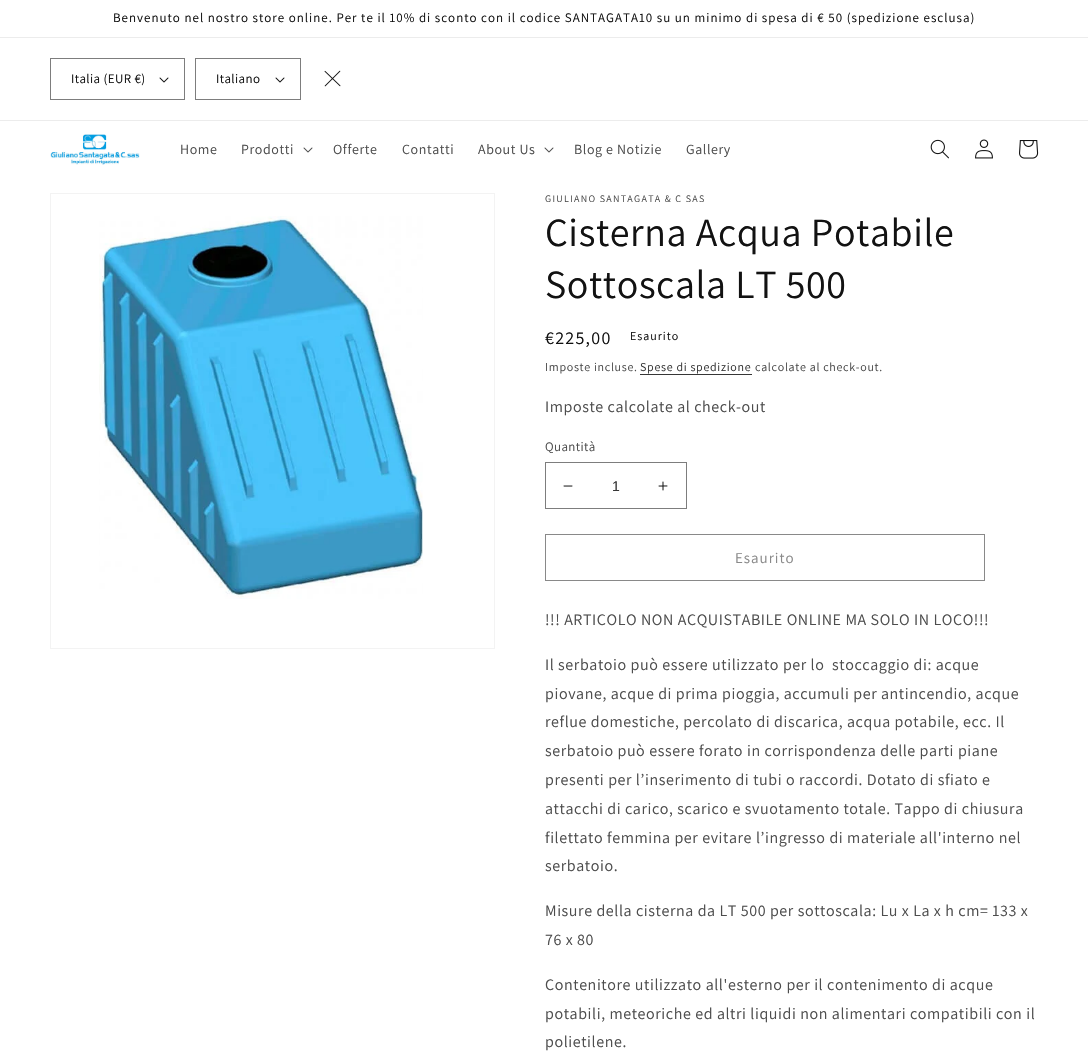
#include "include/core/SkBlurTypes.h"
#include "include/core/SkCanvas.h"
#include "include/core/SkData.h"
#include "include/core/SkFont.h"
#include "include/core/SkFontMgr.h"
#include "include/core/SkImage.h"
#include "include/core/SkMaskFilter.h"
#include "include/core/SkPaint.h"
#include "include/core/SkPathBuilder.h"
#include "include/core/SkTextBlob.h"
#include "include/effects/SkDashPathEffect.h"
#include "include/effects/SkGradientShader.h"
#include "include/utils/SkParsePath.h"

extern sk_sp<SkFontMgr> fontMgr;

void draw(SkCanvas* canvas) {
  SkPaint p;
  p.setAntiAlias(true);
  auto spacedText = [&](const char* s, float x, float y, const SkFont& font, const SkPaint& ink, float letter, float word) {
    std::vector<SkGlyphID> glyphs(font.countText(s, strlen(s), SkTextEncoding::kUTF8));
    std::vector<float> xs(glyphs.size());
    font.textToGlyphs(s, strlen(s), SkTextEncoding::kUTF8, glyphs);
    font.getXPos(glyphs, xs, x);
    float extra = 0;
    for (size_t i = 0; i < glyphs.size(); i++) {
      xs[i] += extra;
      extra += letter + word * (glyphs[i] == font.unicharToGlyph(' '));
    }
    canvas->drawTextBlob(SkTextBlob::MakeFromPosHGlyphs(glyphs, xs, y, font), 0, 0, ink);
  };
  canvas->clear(SK_ColorWHITE);
  p.setColor(SkColorSetRGB(236, 236, 236));
  canvas->drawRect(SkRect::MakeLTRB(0, 37, 1088, 38), p);
  canvas->drawRect(SkRect::MakeLTRB(0, 120, 1088, 121), p);
  canvas->drawImageRect(SkImages::DeferredFromEncodedData(SkData::MakeFromFileName("images/1.png")), SkRect::MakeLTRB(159, 77, 169, 83), SkSamplingOptions());
  p.setStyle(SkPaint::kStroke_Style);
  p.setStrokeWidth(1);
  p.setColor(SkColorSetRGB(125, 125, 125));
  canvas->drawRect(SkRect::MakeLTRB(50.5f, 58.5f, 184.5f, 99.5f), p);
  canvas->drawImageRect(SkImages::DeferredFromEncodedData(SkData::MakeFromFileName("images/1.png")), SkRect::MakeLTRB(275, 77, 285, 83), SkSamplingOptions());
  canvas->drawRect(SkRect::MakeLTRB(195.5f, 58.5f, 300.5f, 99.5f), p);
  canvas->drawImageRect(SkImages::DeferredFromEncodedData(SkData::MakeFromFileName("images/2.png")), SkRect::MakeLTRB(324, 70, 341, 87), SkSamplingOptions());
  canvas->drawImageRect(SkImages::DeferredFromEncodedData(SkData::MakeFromFileName("images/3.png")), SkRect::MakeLTRB(50, 134, 140, 165), SkSamplingOptions());
  canvas->drawImageRect(SkImages::DeferredFromEncodedData(SkData::MakeFromFileName("images/4.png")), SkRect::MakeLTRB(303, 147, 313, 153), SkSamplingOptions());
  canvas->drawImageRect(SkImages::DeferredFromEncodedData(SkData::MakeFromFileName("images/4.png")), SkRect::MakeLTRB(544, 147, 554, 153), SkSamplingOptions());
  canvas->drawImageRect(SkImages::DeferredFromEncodedData(SkData::MakeFromFileName("images/5.png")), SkRect::MakeLTRB(930, 139, 949, 159), SkSamplingOptions());
  canvas->drawImageRect(SkImages::DeferredFromEncodedData(SkData::MakeFromFileName("images/6.png")), SkRect::MakeLTRB(975, 139, 993, 159), SkSamplingOptions());
  canvas->drawImageRect(SkImages::DeferredFromEncodedData(SkData::MakeFromFileName("images/7.png")), SkRect::MakeLTRB(1019, 140, 1039, 159), SkSamplingOptions());
  p.setColor(SkColorSetRGB(243, 243, 243));
  canvas->drawRect(SkRect::MakeLTRB(50.5f, 193.5f, 494.5f, 648.5f), p);
  canvas->drawImageRect(SkImages::DeferredFromEncodedData(SkData::MakeFromFileName("images/8.png")), SkRect::MakeLTRB(99, 216, 423, 599), SkSamplingOptions());
  p.setStyle(SkPaint::kFill_Style);
  p.setColor(SkColorSetRGB(54, 54, 54));
  canvas->drawRect(SkRect::MakeLTRB(640, 374, 752, 375), p);
  canvas->drawImageRect(SkImages::DeferredFromEncodedData(SkData::MakeFromFileName("images/9.png")), SkRect::MakeLTRB(563, 485, 573, 487), SkSamplingOptions());
  canvas->drawImageRect(SkImages::DeferredFromEncodedData(SkData::MakeFromFileName("images/10.png")), SkRect::MakeLTRB(658, 481, 668, 491), SkSamplingOptions());
  p.setStyle(SkPaint::kStroke_Style);
  p.setColor(SkColorSetRGB(125, 125, 125));
  canvas->drawRect(SkRect::MakeLTRB(545.5f, 462.5f, 686.5f, 508.5f), p);
  p.setColor(SkColorSetRGB(137, 137, 137));
  canvas->drawRect(SkRect::MakeLTRB(545.5f, 534.5f, 984.5f, 580.5f), p);
  SkFont font1(fontMgr->matchFamilyStyle("Assistant", SkFontStyle::Normal()), 13);
  font1.setSubpixel(true);
  p.setStyle(SkPaint::kFill_Style);
  p.setColor(SkColorSetRGB(18, 18, 18));
  spacedText("Benvenuto nel nostro store online. Per te il 10% di sconto con il codice SANTAGATA10 su un minimo di spesa di € 50 (spedizione esclusa)", 113, 22, font1, p, 1, 0);
  spacedText("Italia (EUR €)", 71, 83, font1, p, 0.4f, 0);
  spacedText("Italiano", 216, 83, font1, p, 0.4f, 0);
  SkFont font2(fontMgr->matchFamilyStyle("Assistant", SkFontStyle::Normal()), 14);
  font2.setSubpixel(true);
  p.setColor(SkColorSetRGB(77, 77, 77));
  spacedText("Home", 180, 154, font2, p, 0.6f, 0);
  spacedText("Prodotti", 241, 154, font2, p, 0.6f, 0);
  spacedText("Offerte", 333, 154, font2, p, 0.6f, 0);
  spacedText("Contatti", 402, 154, font2, p, 0.6f, 0);
  spacedText("About Us", 478, 154, font2, p, 0.6f, 0);
  spacedText("Blog e Notizie", 574, 154, font2, p, 0.6f, 0);
  spacedText("Gallery", 686, 154, font2, p, 0.6f, 0);
  SkFont font3(fontMgr->matchFamilyStyle("Assistant", SkFontStyle::Normal()), 10);
  font3.setSubpixel(true);
  spacedText("GIULIANO SANTAGATA & C SAS", 545, 202, font3, p, 1.3f, 0);
  SkFont font4(fontMgr->matchFamilyStyle("Assistant", SkFontStyle::Normal()), 40);
  font4.setSubpixel(true);
  p.setColor(SkColorSetRGB(18, 18, 18));
  spacedText("Cisterna Acqua Potabile", 545, 246, font4, p, 0.6f, 0);
  spacedText("Sottoscala LT 500", 545, 298, font4, p, 0.6f, 0);
  SkFont font5(fontMgr->matchFamilyStyle("Assistant", SkFontStyle::Normal()), 18);
  font5.setSubpixel(true);
  spacedText("€225,00", 545, 344, font5, p, 1.3f, 0);
  SkFont font6(fontMgr->matchFamilyStyle("Assistant", SkFontStyle::Normal()), 12);
  font6.setSubpixel(true);
  spacedText("Esaurito", 630, 340, font6, p, 1, 0);
  p.setColor(SkColorSetRGB(77, 77, 77));
  spacedText("Imposte incluse.", 545, 371, font6, p, 0.7f, 0);
  p.setColor(SkColorSetRGB(54, 54, 54));
  spacedText("Spese di spedizione", 640, 371, font6, p, 0.7f, 0);
  p.setColor(SkColorSetRGB(77, 77, 77));
  spacedText("calcolate al check-out.", 755, 371, font6, p, 0.7f, 0);
  SkFont font7(fontMgr->matchFamilyStyle("Assistant", SkFontStyle::Normal()), 16);
  font7.setSubpixel(true);
  spacedText("Imposte calcolate al check-out", 545, 412, font7, p, 0.6f, 0);
  spacedText("Quantità", 545, 451, font1, p, 0.4f, 0);
  SkFont font8(fontMgr->matchFamilyStyle("Liberation Sans", SkFontStyle::Normal()), 14);
  font8.setSubpixel(true);
  p.setColor(SkColorSetRGB(54, 54, 54));
  canvas->drawString("1", 612, 491, font8, p);
  SkFont font9(fontMgr->matchFamilyStyle("Assistant", SkFontStyle::Normal()), 15);
  font9.setSubpixel(true);
  p.setColor(SkColorSetRGB(137, 137, 137));
  spacedText("Esaurito", 735, 563, font9, p, 1, 0);
  p.setColor(SkColorSetRGB(77, 77, 77));
  spacedText("!!! ARTICOLO NON ACQUISTABILE ONLINE MA SOLO IN LOCO!!!", 545, 625, font7, p, 0.6f, 0);
  spacedText("Il serbatoio può essere utilizzato per lo  stoccaggio di: acque", 545, 670, font7, p, 0.6f, 0);
  spacedText("piovane, acque di prima pioggia, accumuli per antincendio, acque", 545, 699, font7, p, 0.6f, 0);
  spacedText("reflue domestiche, percolato di discarica, acqua potabile, ecc. Il", 545, 727, font7, p, 0.6f, 0);
  spacedText("serbatoio può essere forato in corrispondenza delle parti piane", 545, 756, font7, p, 0.6f, 0);
  spacedText("presenti per l’inserimento di tubi o raccordi. Dotato di sfiato e", 545, 785, font7, p, 0.6f, 0);
  spacedText("attacchi di carico, scarico e svuotamento totale. Tappo di chiusura", 545, 814, font7, p, 0.6f, 0);
  spacedText("filettato femmina per evitare l’ingresso di materiale all'interno nel", 545, 843, font7, p, 0.6f, 0);
  spacedText("serbatoio.", 545, 871, font7, p, 0.6f, 0);
  spacedText("Misure della cisterna da LT 500 per sottoscala: Lu x La x h cm= 133 x", 545, 916, font7, p, 0.6f, 0);
  spacedText("76 x 80", 545, 945, font7, p, 0.6f, 0);
  spacedText("Contenitore utilizzato all'esterno per il contenimento di acque", 545, 990, font7, p, 0.6f, 0);
  spacedText("potabili, meteoriche ed altri liquidi non alimentari compatibili con il", 545, 1019, font7, p, 0.6f, 0);
  spacedText("polietilene.", 545, 1047, font7, p, 0.6f, 0);
}
